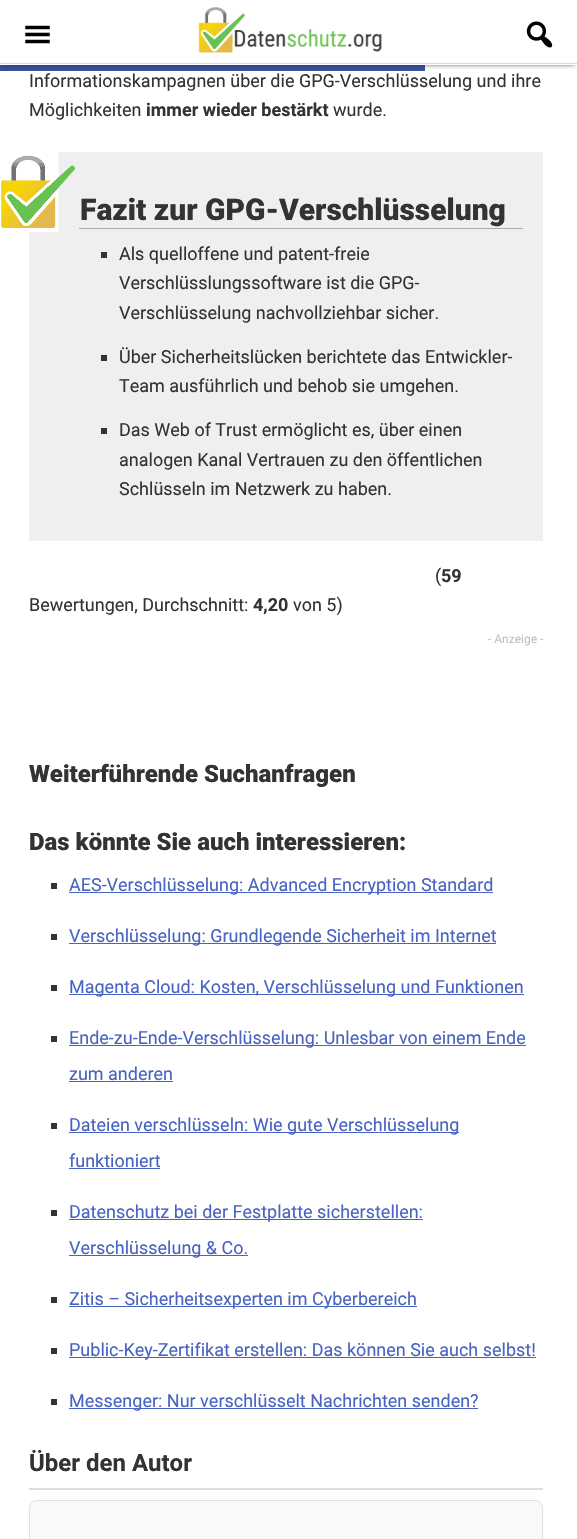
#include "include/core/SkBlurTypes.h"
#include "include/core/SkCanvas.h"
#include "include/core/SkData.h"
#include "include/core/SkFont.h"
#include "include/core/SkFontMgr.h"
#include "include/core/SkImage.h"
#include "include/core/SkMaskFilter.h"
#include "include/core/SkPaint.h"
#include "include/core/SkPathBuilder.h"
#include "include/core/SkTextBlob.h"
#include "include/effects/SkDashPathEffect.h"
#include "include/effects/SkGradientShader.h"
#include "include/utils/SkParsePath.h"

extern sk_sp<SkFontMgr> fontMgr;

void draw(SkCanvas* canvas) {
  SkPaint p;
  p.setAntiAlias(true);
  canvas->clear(SK_ColorWHITE);
  p.setColor(SkColorSetRGB(57, 79, 155));
  canvas->drawRect(SkRect::MakeLTRB(0, 65, 425, 71), p);
  p.setColor(SkColorSetRGB(34, 34, 34));
  p.setMaskFilter(SkMaskFilter::MakeBlur(kNormal_SkBlurStyle, 2.5f));
  canvas->drawRect(SkRect::MakeLTRB(2, 3, 575, 64), p);
  p.setMaskFilter(nullptr);
  p.setColor(SK_ColorWHITE);
  canvas->drawRect(SkRect::MakeLTRB(0, 0, 577, 65), p);
  p.setColor(SkColorSetRGB(217, 217, 217));
  canvas->drawRect(SkRect::MakeLTRB(0, 63, 577, 64), p);
  canvas->drawImageRect(SkImages::DeferredFromEncodedData(SkData::MakeFromFileName("images/1.png")), SkRect::MakeLTRB(25, 25, 50, 44), SkSamplingOptions());
  canvas->drawImageRect(SkImages::DeferredFromEncodedData(SkData::MakeFromFileName("images/2.png")), SkRect::MakeLTRB(198, 7, 383, 53), SkSamplingOptions());
  canvas->drawImageRect(SkImages::DeferredFromEncodedData(SkData::MakeFromFileName("images/3.png")), SkRect::MakeLTRB(526, 21, 553, 48), SkSamplingOptions());
  p.setColor(SkColorSetRGB(239, 239, 239));
  canvas->drawRect(SkRect::MakeLTRB(29, 152, 543, 541), p);
  canvas->drawImageRect(SkImages::DeferredFromEncodedData(SkData::MakeFromFileName("images/4.png")), SkRect::MakeLTRB(1, 152, 75, 232), SkSamplingOptions());
  p.setColor(SkColorSetRGB(170, 170, 170));
  canvas->drawRect(SkRect::MakeLTRB(79, 228, 523, 229), p);
  p.setColor(SkColorSetRGB(51, 51, 51));
  canvas->drawRect(SkRect::MakeLTRB(101, 252, 107, 258), p);
  canvas->drawRect(SkRect::MakeLTRB(101, 355, 107, 361), p);
  canvas->drawRect(SkRect::MakeLTRB(101, 428, 107, 434), p);
  canvas->drawRect(SkRect::MakeLTRB(51, 883, 57, 889), p);
  p.setColor(SkColorSetRGB(72, 99, 194));
  canvas->drawRect(SkRect::MakeLTRB(69, 892, 493, 893), p);
  p.setColor(SkColorSetRGB(51, 51, 51));
  canvas->drawRect(SkRect::MakeLTRB(51, 934, 57, 940), p);
  p.setColor(SkColorSetRGB(72, 99, 194));
  canvas->drawRect(SkRect::MakeLTRB(69, 943, 496, 944), p);
  p.setColor(SkColorSetRGB(51, 51, 51));
  canvas->drawRect(SkRect::MakeLTRB(51, 985, 57, 991), p);
  p.setColor(SkColorSetRGB(72, 99, 194));
  canvas->drawRect(SkRect::MakeLTRB(69, 994, 524, 995), p);
  p.setColor(SkColorSetRGB(51, 51, 51));
  canvas->drawRect(SkRect::MakeLTRB(51, 1036, 57, 1042), p);
  p.setColor(SkColorSetRGB(72, 99, 194));
  canvas->drawRect(SkRect::MakeLTRB(69, 1045, 526, 1046), p);
  canvas->drawRect(SkRect::MakeLTRB(69, 1081, 173, 1082), p);
  p.setColor(SkColorSetRGB(51, 51, 51));
  canvas->drawRect(SkRect::MakeLTRB(51, 1123, 57, 1129), p);
  p.setColor(SkColorSetRGB(72, 99, 194));
  canvas->drawRect(SkRect::MakeLTRB(69, 1132, 459, 1133), p);
  canvas->drawRect(SkRect::MakeLTRB(69, 1168, 160, 1169), p);
  p.setColor(SkColorSetRGB(51, 51, 51));
  canvas->drawRect(SkRect::MakeLTRB(51, 1210, 57, 1216), p);
  p.setColor(SkColorSetRGB(72, 99, 194));
  canvas->drawRect(SkRect::MakeLTRB(69, 1219, 423, 1220), p);
  canvas->drawRect(SkRect::MakeLTRB(69, 1255, 248, 1256), p);
  p.setColor(SkColorSetRGB(51, 51, 51));
  canvas->drawRect(SkRect::MakeLTRB(51, 1297, 57, 1303), p);
  p.setColor(SkColorSetRGB(72, 99, 194));
  canvas->drawRect(SkRect::MakeLTRB(69, 1306, 417, 1307), p);
  p.setColor(SkColorSetRGB(51, 51, 51));
  canvas->drawRect(SkRect::MakeLTRB(51, 1348, 57, 1354), p);
  p.setColor(SkColorSetRGB(72, 99, 194));
  canvas->drawRect(SkRect::MakeLTRB(69, 1357, 536, 1358), p);
  p.setColor(SkColorSetRGB(51, 51, 51));
  canvas->drawRect(SkRect::MakeLTRB(51, 1399, 57, 1405), p);
  p.setColor(SkColorSetRGB(72, 99, 194));
  canvas->drawRect(SkRect::MakeLTRB(69, 1408, 478, 1409), p);
  p.setColor(SkColorSetRGB(221, 221, 221));
  canvas->drawRect(SkRect::MakeLTRB(29, 1488, 543, 1490), p);
  p.setColor(SkColorSetRGB(249, 249, 249));
  canvas->drawRoundRect(SkRect::MakeLTRB(29.5f, 1500.5f, 542.5f, 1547.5f), 7.5f, 7.5f, p);
  p.setStyle(SkPaint::kStroke_Style);
  p.setStrokeWidth(1);
  p.setColor(SkColorSetRGB(224, 224, 224));
  canvas->drawRoundRect(SkRect::MakeLTRB(29.5f, 1500.5f, 542.5f, 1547.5f), 7.5f, 7.5f, p);
  SkFont font1(fontMgr->matchFamilyStyle("Roboto", SkFontStyle::Normal()), 18);
  font1.setSubpixel(true);
  p.setStyle(SkPaint::kFill_Style);
  p.setColor(SkColorSetRGB(51, 51, 51));
  canvas->drawString("Informationskampagnen über die GPG-Verschlüsselung und ihre", 29, 87, font1, p);
  canvas->drawString("Möglichkeiten", 29, 116, font1, p);
  SkFont font2(fontMgr->matchFamilyStyle("Roboto", SkFontStyle::Bold()), 18);
  font2.setSubpixel(true);
  canvas->drawString("immer wieder bestärkt", 146, 116, font2, p);
  canvas->drawString("wurde.", 333, 116, font1, p);
  SkFont font3(fontMgr->matchFamilyStyle("Roboto", SkFontStyle(900, SkFontStyle::kNormal_Width, SkFontStyle::kUpright_Slant)), 30);
  font3.setSubpixel(true);
  canvas->drawString("Fazit zur GPG-Verschlüsselung", 80, 220, font3, p);
  canvas->drawString("Als quelloffene und patent-freie", 119, 260, font1, p);
  canvas->drawString("Verschlüsslungssoftware ist die GPG-", 119, 289, font1, p);
  canvas->drawString("Verschlüsselung nachvollziehbar sicher.", 119, 319, font1, p);
  canvas->drawString("Über Sicherheitslücken berichtete das Entwickler-", 119, 363, font1, p);
  canvas->drawString("Team ausführlich und behob sie umgehen.", 119, 392, font1, p);
  canvas->drawString("Das Web of Trust ermöglicht es, über einen", 119, 436, font1, p);
  canvas->drawString("analogen Kanal Vertrauen zu den öffentlichen", 119, 466, font1, p);
  canvas->drawString("Schlüsseln im Netzwerk zu haben.", 119, 495, font1, p);
  canvas->drawString("(", 435, 582, font1, p);
  canvas->drawString("59", 441, 582, font2, p);
  canvas->drawString("Bewertungen, Durchschnitt:", 29, 611, font1, p);
  canvas->drawString("4,20", 253, 611, font2, p);
  canvas->drawString("von 5)", 293, 611, font1, p);
  SkFont font4(fontMgr->matchFamilyStyle("Roboto", SkFontStyle::Normal()), 12);
  font4.setSubpixel(true);
  p.setColor(SkColorSetRGB(191, 191, 191));
  canvas->drawString("- Anzeige -", 488, 643, font4, p);
  SkFont font5(fontMgr->matchFamilyStyle("Roboto", SkFontStyle(900, SkFontStyle::kNormal_Width, SkFontStyle::kUpright_Slant)), 24);
  font5.setSubpixel(true);
  p.setColor(SkColorSetRGB(51, 51, 51));
  canvas->drawString("Weiterführende Suchanfragen", 29, 782, font5, p);
  canvas->drawString("Das könnte Sie auch interessieren:", 29, 850, font5, p);
  p.setColor(SkColorSetRGB(72, 99, 194));
  canvas->drawString("AES-Verschlüsselung: Advanced Encryption Standard", 69, 891, font1, p);
  canvas->drawString("Verschlüsselung: Grundlegende Sicherheit im Internet", 69, 942, font1, p);
  canvas->drawString("Magenta Cloud: Kosten, Verschlüsselung und Funktionen", 69, 993, font1, p);
  canvas->drawString("Ende-zu-Ende-Verschlüsselung: Unlesbar von einem Ende", 69, 1044, font1, p);
  canvas->drawString("zum anderen", 69, 1080, font1, p);
  canvas->drawString("Dateien verschlüsseln: Wie gute Verschlüsselung", 69, 1131, font1, p);
  canvas->drawString("funktioniert", 69, 1167, font1, p);
  canvas->drawString("Datenschutz bei der Festplatte sicherstellen:", 69, 1218, font1, p);
  canvas->drawString("Verschlüsselung & Co.", 69, 1254, font1, p);
  canvas->drawString("Zitis – Sicherheitsexperten im Cyberbereich", 69, 1305, font1, p);
  canvas->drawString("Public-Key-Zertifikat erstellen: Das können Sie auch selbst!", 69, 1356, font1, p);
  canvas->drawString("Messenger: Nur verschlüsselt Nachrichten senden?", 69, 1407, font1, p);
  SkFont font6(fontMgr->matchFamilyStyle("Roboto", SkFontStyle::Bold()), 24);
  font6.setSubpixel(true);
  p.setColor(SkColorSetRGB(51, 51, 51));
  canvas->drawString("Über den Autor", 29, 1471, font6, p);
}
